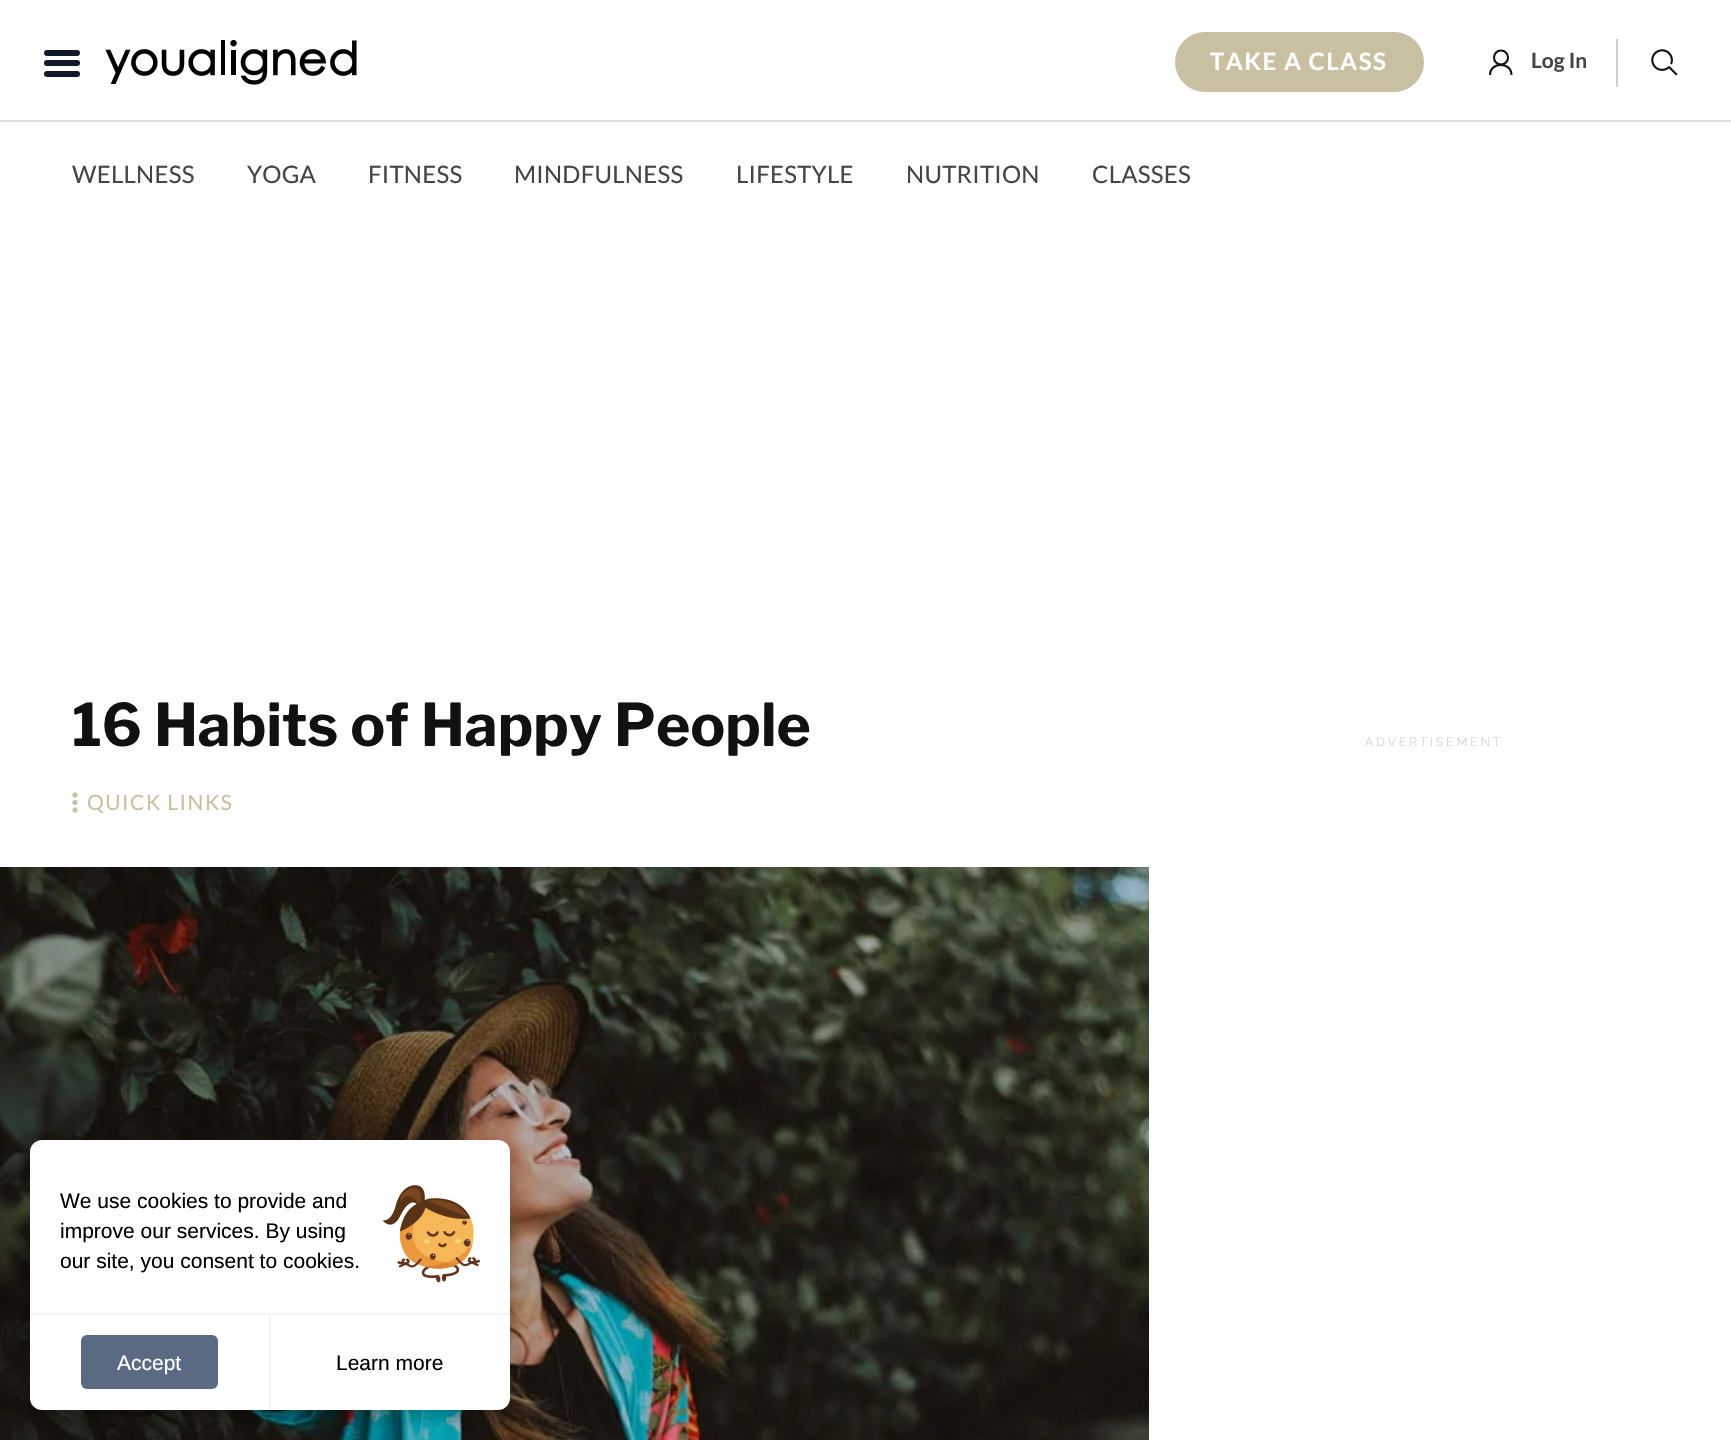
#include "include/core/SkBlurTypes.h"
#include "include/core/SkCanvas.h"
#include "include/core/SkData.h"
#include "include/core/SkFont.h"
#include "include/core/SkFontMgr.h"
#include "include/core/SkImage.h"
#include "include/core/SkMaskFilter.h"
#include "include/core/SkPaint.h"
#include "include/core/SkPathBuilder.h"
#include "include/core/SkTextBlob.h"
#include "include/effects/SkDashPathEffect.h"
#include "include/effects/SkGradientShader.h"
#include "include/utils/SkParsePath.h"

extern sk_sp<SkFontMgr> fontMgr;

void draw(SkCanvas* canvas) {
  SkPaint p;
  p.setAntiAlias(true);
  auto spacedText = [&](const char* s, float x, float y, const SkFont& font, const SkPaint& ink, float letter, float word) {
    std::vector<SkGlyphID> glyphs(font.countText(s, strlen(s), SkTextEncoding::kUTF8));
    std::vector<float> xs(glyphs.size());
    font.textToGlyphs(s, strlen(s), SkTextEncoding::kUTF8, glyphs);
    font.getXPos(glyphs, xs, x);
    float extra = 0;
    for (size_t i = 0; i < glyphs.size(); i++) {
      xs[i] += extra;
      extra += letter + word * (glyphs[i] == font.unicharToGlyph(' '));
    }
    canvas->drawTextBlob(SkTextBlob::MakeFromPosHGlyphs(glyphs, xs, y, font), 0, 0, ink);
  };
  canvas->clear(SK_ColorWHITE);
  p.setColor(SkColorSetRGB(222, 221, 220));
  canvas->drawRect(SkRect::MakeLTRB(0, 120, 1731, 122), p);
  p.setColor(SkColorSetRGB(17, 24, 39));
  canvas->drawRoundRect(SkRect::MakeLTRB(44, 50, 80, 56), 3, 3, p);
  canvas->drawRoundRect(SkRect::MakeLTRB(44, 60, 80, 66), 3, 3, p);
  canvas->drawRoundRect(SkRect::MakeLTRB(44, 71, 80, 77), 3, 3, p);
  canvas->drawImageRect(SkImages::DeferredFromEncodedData(SkData::MakeFromFileName("images/1.png")), SkRect::MakeLTRB(105, 39, 357, 85), SkSamplingOptions());
  p.setColor(SkColorSetRGB(201, 191, 161));
  canvas->drawRoundRect(SkRect::MakeLTRB(1175, 32, 1424, 92), 30, 30, p);
  p.setStyle(SkPaint::kStroke_Style);
  p.setStrokeWidth(2.1f);
  p.setColor(SkColorSetRGB(17, 17, 17));
  canvas->drawCircle(1501, 57.5f, 7, p);
  p.setStrokeJoin(SkPaint::kRound_Join);
  canvas->drawPath(SkPathBuilder().moveTo(1490, 75).cubicTo(1490, 61.5f, 1511.5f, 61.5f, 1511.5f, 75).detach(), p);
  p.setStyle(SkPaint::kFill_Style);
  p.setColor(SkColorSetRGB(207, 207, 207));
  canvas->drawRect(SkRect::MakeLTRB(1616, 39, 1618, 87), p);
  canvas->drawImageRect(SkImages::DeferredFromEncodedData(SkData::MakeFromFileName("images/2.png")), SkRect::MakeLTRB(1651, 49, 1678, 76), SkSamplingOptions());
  canvas->drawImageRect(SkImages::DeferredFromEncodedData(SkData::MakeFromFileName("images/3.png")), SkRect::MakeLTRB(72, 792, 78, 813), SkSamplingOptions());
  canvas->drawImageRect(SkImages::DeferredFromEncodedData(SkData::MakeFromFileName("images/4.png")), SkRect::MakeLTRB(0, 867, 1149, 1440), SkSamplingOptions());
  p.setColor(SkColorSetARGB(51, 0, 0, 0));
  p.setMaskFilter(SkMaskFilter::MakeBlur(kNormal_SkBlurStyle, 8));
  canvas->drawRoundRect(SkRect::MakeLTRB(30, 1149, 510, 1419), 12, 12, p);
  p.setMaskFilter(nullptr);
  p.setColor(SK_ColorWHITE);
  canvas->drawRoundRect(SkRect::MakeLTRB(30, 1140, 510, 1410), 12, 12, p);
  canvas->drawImageRect(SkImages::DeferredFromEncodedData(SkData::MakeFromFileName("images/5.png")), SkRect::MakeLTRB(383, 1185, 480, 1283), SkSamplingOptions());
  p.setColor(SkColorSetRGB(243, 244, 246));
  canvas->drawRect(SkRect::MakeLTRB(30, 1313, 510, 1315), p);
  canvas->drawRect(SkRect::MakeLTRB(269, 1314, 271, 1410), p);
  p.setColor(SkColorSetRGB(90, 106, 131));
  canvas->drawRoundRect(SkRect::MakeLTRB(81, 1335, 218, 1389), 6, 6, p);
  SkFont font1(fontMgr->matchFamilyStyle("Lato", SkFontStyle::Bold()), 24);
  font1.setSubpixel(true);
  p.setColor(SK_ColorWHITE);
  spacedText("TAKE A CLASS", 1210, 70, font1, p, 1.5f, 0);
  SkFont font2(fontMgr->matchFamilyStyle("Lato", SkFontStyle::Bold()), 21);
  font2.setSubpixel(true);
  p.setColor(SkColorSetRGB(70, 69, 69));
  canvas->drawString("Log In", 1531, 68, font2, p);
  SkFont font3(fontMgr->matchFamilyStyle("Lato", SkFontStyle::Normal()), 24);
  font3.setSubpixel(true);
  spacedText("WELLNESS", 72, 183, font3, p, 0.25f, 0);
  spacedText("YOGA", 247, 183, font3, p, 0.25f, 0);
  spacedText("FITNESS", 368, 183, font3, p, 0.25f, 0);
  spacedText("MINDFULNESS", 514, 183, font3, p, 0.25f, 0);
  spacedText("LIFESTYLE", 736, 183, font3, p, 0.25f, 0);
  spacedText("NUTRITION", 906, 183, font3, p, 0.25f, 0);
  spacedText("CLASSES", 1092, 183, font3, p, 0.25f, 0);
  SkFont font4(fontMgr->matchFamilyStyle("Libre Franklin", SkFontStyle::Bold()), 58.5f);
  font4.setSubpixel(true);
  p.setColor(SkColorSetRGB(17, 17, 17));
  canvas->drawString("16 Habits of Happy People", 72, 746, font4, p);
  SkFont font5(fontMgr->matchFamilyStyle("Lato", SkFontStyle::Normal()), 21);
  font5.setSubpixel(true);
  p.setColor(SkColorSetRGB(201, 191, 161));
  spacedText("QUICK LINKS", 87, 810, font5, p, 1.5f, 0);
  SkFont font6(fontMgr->matchFamilyStyle("Raleway", SkFontStyle(300, SkFontStyle::kNormal_Width, SkFontStyle::kUpright_Slant)), 12);
  font6.setSubpixel(true);
  p.setColor(SkColorSetRGB(204, 204, 204));
  spacedText("ADVERTISEMENT", 1365, 746, font6, p, 3, 0);
  SkFont font7(fontMgr->matchFamilyStyle("Liberation Sans", SkFontStyle::Normal()), 21);
  font7.setSubpixel(true);
  p.setColor(SK_ColorBLACK);
  canvas->drawString("We use cookies to provide and", 60, 1208, font7, p);
  canvas->drawString("improve our services. By using", 60, 1238, font7, p);
  canvas->drawString("our site, you consent to cookies.", 60, 1268, font7, p);
  p.setColor(SK_ColorWHITE);
  canvas->drawString("Accept", 117, 1370, font7, p);
  p.setColor(SK_ColorBLACK);
  canvas->drawString("Learn more", 336, 1370, font7, p);
}
